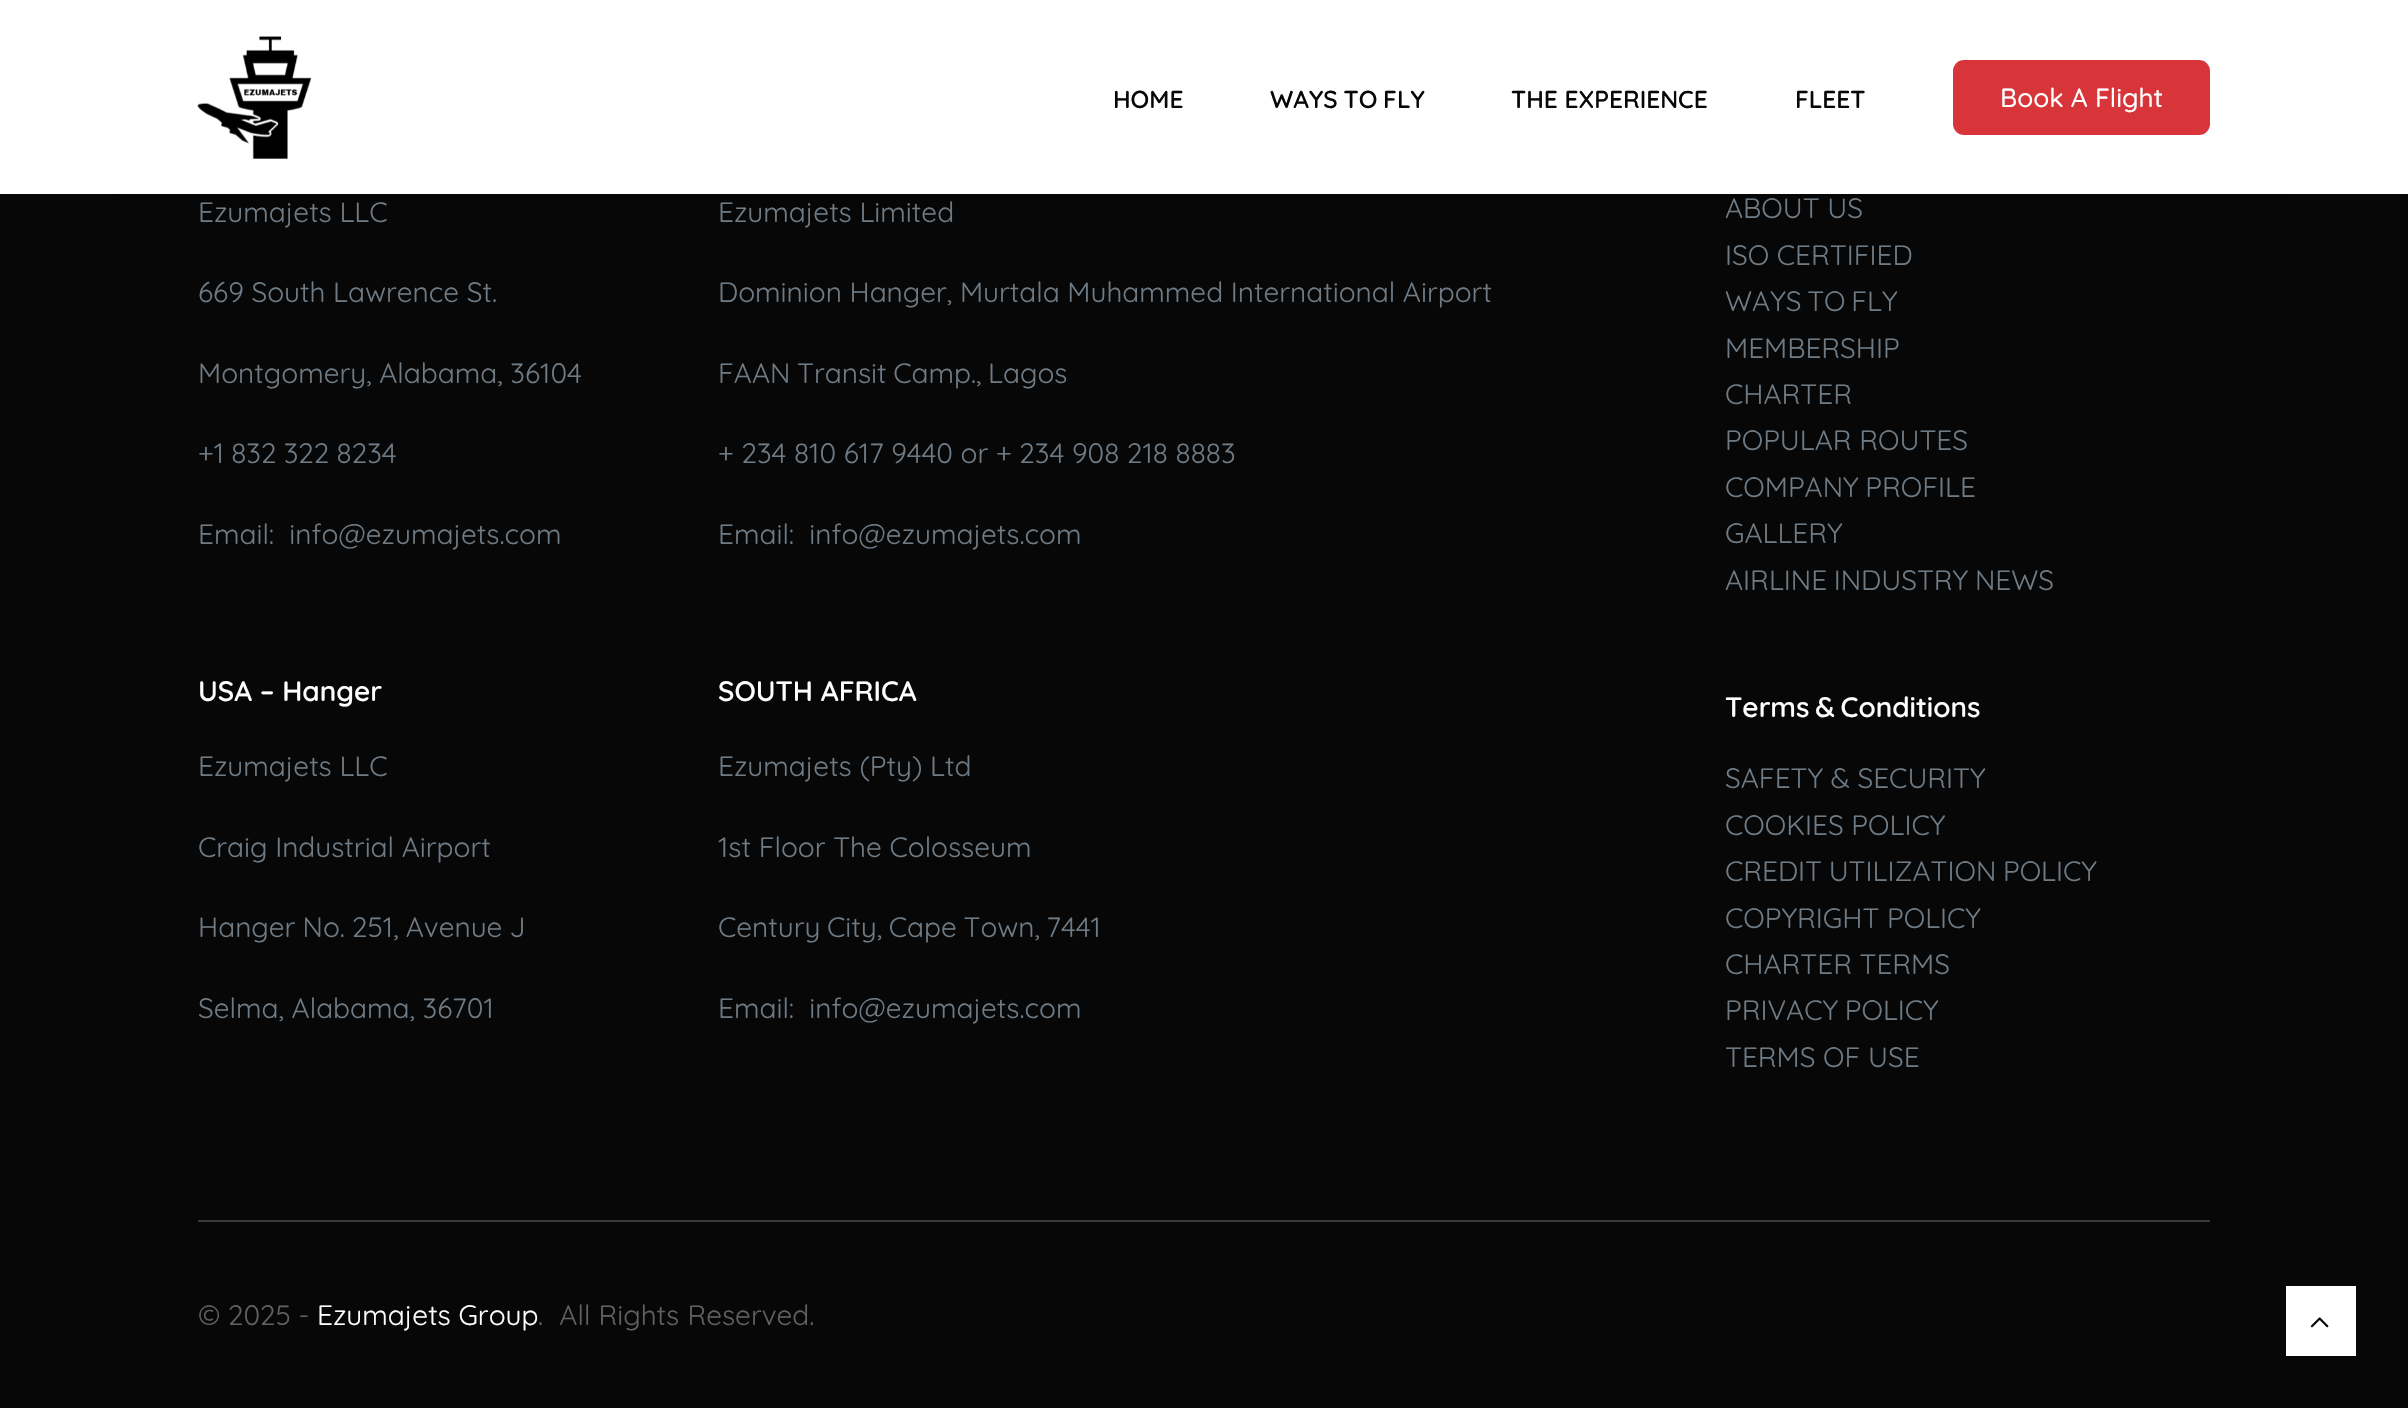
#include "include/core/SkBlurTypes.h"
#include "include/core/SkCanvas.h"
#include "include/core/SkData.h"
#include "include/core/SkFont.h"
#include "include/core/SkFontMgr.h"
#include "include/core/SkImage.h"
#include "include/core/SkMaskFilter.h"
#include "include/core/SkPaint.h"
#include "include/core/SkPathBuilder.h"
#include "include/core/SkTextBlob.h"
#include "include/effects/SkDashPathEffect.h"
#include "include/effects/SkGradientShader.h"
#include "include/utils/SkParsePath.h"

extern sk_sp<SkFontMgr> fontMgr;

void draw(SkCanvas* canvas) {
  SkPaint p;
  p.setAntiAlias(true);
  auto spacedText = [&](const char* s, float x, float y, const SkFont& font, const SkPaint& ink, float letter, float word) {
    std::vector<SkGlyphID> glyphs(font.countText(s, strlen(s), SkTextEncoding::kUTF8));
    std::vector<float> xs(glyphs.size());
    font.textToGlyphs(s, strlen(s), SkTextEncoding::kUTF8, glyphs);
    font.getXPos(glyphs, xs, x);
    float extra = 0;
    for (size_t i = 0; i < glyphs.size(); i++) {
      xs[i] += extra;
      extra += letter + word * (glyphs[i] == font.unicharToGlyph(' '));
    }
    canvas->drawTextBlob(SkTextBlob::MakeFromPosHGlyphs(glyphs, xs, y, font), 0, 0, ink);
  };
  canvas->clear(SkColorSetRGB(7, 7, 7));
  p.setColor(SkColorSetARGB(64, 0, 0, 0));
  p.setMaskFilter(SkMaskFilter::MakeBlur(kNormal_SkBlurStyle, 79));
  canvas->drawRect(SkRect::MakeLTRB(32, 40, 2370, 165), p);
  p.setMaskFilter(nullptr);
  p.setColor(SK_ColorWHITE);
  canvas->drawRect(SkRect::MakeLTRB(0, 0, 2408, 194), p);
  canvas->drawImageRect(SkImages::DeferredFromEncodedData(SkData::MakeFromFileName("images/1.png")), SkRect::MakeLTRB(197, 36, 312, 159), SkSamplingOptions());
  p.setColor(SkColorSetRGB(216, 53, 59));
  canvas->drawRoundRect(SkRect::MakeLTRB(1953, 60, 2210, 135), 11, 11, p);
  p.setColor(SkColorSetRGB(57, 57, 57));
  canvas->drawRect(SkRect::MakeLTRB(198, 1220, 2210, 1222), p);
  p.setColor(SK_ColorWHITE);
  canvas->drawRect(SkRect::MakeLTRB(2286, 1286, 2356, 1356), p);
  canvas->drawImageRect(SkImages::DeferredFromEncodedData(SkData::MakeFromFileName("images/2.png")), SkRect::MakeLTRB(2310, 1317, 2329, 1328), SkSamplingOptions());
  SkFont font1(fontMgr->matchFamilyStyle("Quicksand", SkFontStyle(600, SkFontStyle::kNormal_Width, SkFontStyle::kUpright_Slant)), 24.5f);
  font1.setSubpixel(true);
  p.setColor(SkColorSetRGB(7, 7, 7));
  canvas->drawString("HOME", 1113, 108, font1, p);
  spacedText("WAYS TO FLY", 1270, 108, font1, p, 0, -1);
  canvas->drawString("THE EXPERIENCE", 1511, 108, font1, p);
  canvas->drawString("FLEET", 1795, 108, font1, p);
  SkFont font2(fontMgr->matchFamilyStyle("Quicksand", SkFontStyle(500, SkFontStyle::kNormal_Width, SkFontStyle::kUpright_Slant)), 26.25f);
  font2.setSubpixel(true);
  p.setColor(SK_ColorWHITE);
  canvas->drawString("Book A Flight", 2000, 107, font2, p);
  SkFont font3(fontMgr->matchFamilyStyle("Quicksand", SkFontStyle::Normal()), 28);
  font3.setSubpixel(true);
  p.setColor(SkColorSetRGB(110, 122, 132));
  canvas->drawString("Ezumajets LLC", 198, 222, font3, p);
  canvas->drawString("669 South Lawrence St.", 198, 302, font3, p);
  canvas->drawString("Montgomery, Alabama, 36104", 198, 383, font3, p);
  spacedText("+1 832 322 8234", 198, 463, font3, p, 0, -0.5f);
  canvas->drawString("Email:  info@ezumajets.com", 198, 544, font3, p);
  SkFont font4(fontMgr->matchFamilyStyle("Quicksand", SkFontStyle(600, SkFontStyle::kNormal_Width, SkFontStyle::kUpright_Slant)), 28);
  font4.setSubpixel(true);
  p.setColor(SK_ColorWHITE);
  canvas->drawString("USA – Hanger", 198, 701, font4, p);
  p.setColor(SkColorSetRGB(110, 122, 132));
  canvas->drawString("Ezumajets LLC", 198, 776, font3, p);
  canvas->drawString("Craig Industrial Airport", 198, 857, font3, p);
  spacedText("Hanger No. 251, Avenue J", 198, 937, font3, p, 0, -0.5f);
  canvas->drawString("Selma, Alabama, 36701", 198, 1018, font3, p);
  canvas->drawString("Ezumajets Limited", 718, 222, font3, p);
  canvas->drawString("Dominion Hanger, Murtala Muhammed International Airport", 718, 302, font3, p);
  spacedText("FAAN Transit Camp., Lagos", 718, 383, font3, p, 0, -1);
  canvas->drawString("+ 234 810 617 9440 or + 234 908 218 8883", 718, 463, font3, p);
  canvas->drawString("Email:  info@ezumajets.com", 718, 544, font3, p);
  p.setColor(SK_ColorWHITE);
  canvas->drawString("SOUTH AFRICA", 718, 701, font4, p);
  p.setColor(SkColorSetRGB(110, 122, 132));
  canvas->drawString("Ezumajets (Pty) Ltd", 718, 776, font3, p);
  canvas->drawString("1st Floor The Colosseum", 718, 857, font3, p);
  spacedText("Century City, Cape Town, 7441", 718, 937, font3, p, 0, -1);
  canvas->drawString("Email:  info@ezumajets.com", 718, 1018, font3, p);
  canvas->drawString("ABOUT US", 1725, 218, font3, p);
  canvas->drawString("ISO CERTIFIED", 1725, 265, font3, p);
  spacedText("WAYS TO FLY", 1725, 311, font3, p, 0, -2);
  canvas->drawString("MEMBERSHIP", 1725, 358, font3, p);
  canvas->drawString("CHARTER", 1725, 404, font3, p);
  canvas->drawString("POPULAR ROUTES", 1725, 450, font3, p);
  spacedText("COMPANY PROFILE", 1725, 497, font3, p, 0, -1);
  canvas->drawString("GALLERY", 1725, 543, font3, p);
  spacedText("AIRLINE INDUSTRY NEWS", 1725, 590, font3, p, 0, -1);
  p.setColor(SK_ColorWHITE);
  spacedText("Terms & Conditions", 1725, 717, font4, p, 0, -2);
  p.setColor(SkColorSetRGB(110, 122, 132));
  canvas->drawString("SAFETY & SECURITY", 1725, 788, font3, p);
  canvas->drawString("COOKIES POLICY", 1725, 835, font3, p);
  spacedText("CREDIT UTILIZATION POLICY", 1725, 881, font3, p, 0, -1);
  canvas->drawString("COPYRIGHT POLICY", 1725, 928, font3, p);
  canvas->drawString("CHARTER TERMS", 1725, 974, font3, p);
  spacedText("PRIVACY POLICY", 1725, 1020, font3, p, 0, -1);
  canvas->drawString("TERMS OF USE", 1725, 1067, font3, p);
  p.setColor(SkColorSetRGB(96, 96, 96));
  canvas->drawString("© 2025 -", 198, 1325, font3, p);
  p.setColor(SK_ColorWHITE);
  canvas->drawString("Ezumajets Group", 317, 1325, font3, p);
  p.setColor(SkColorSetRGB(96, 96, 96));
  spacedText(".  All Rights Reserved.", 538, 1325, font3, p, 0, 0.5f);
}
